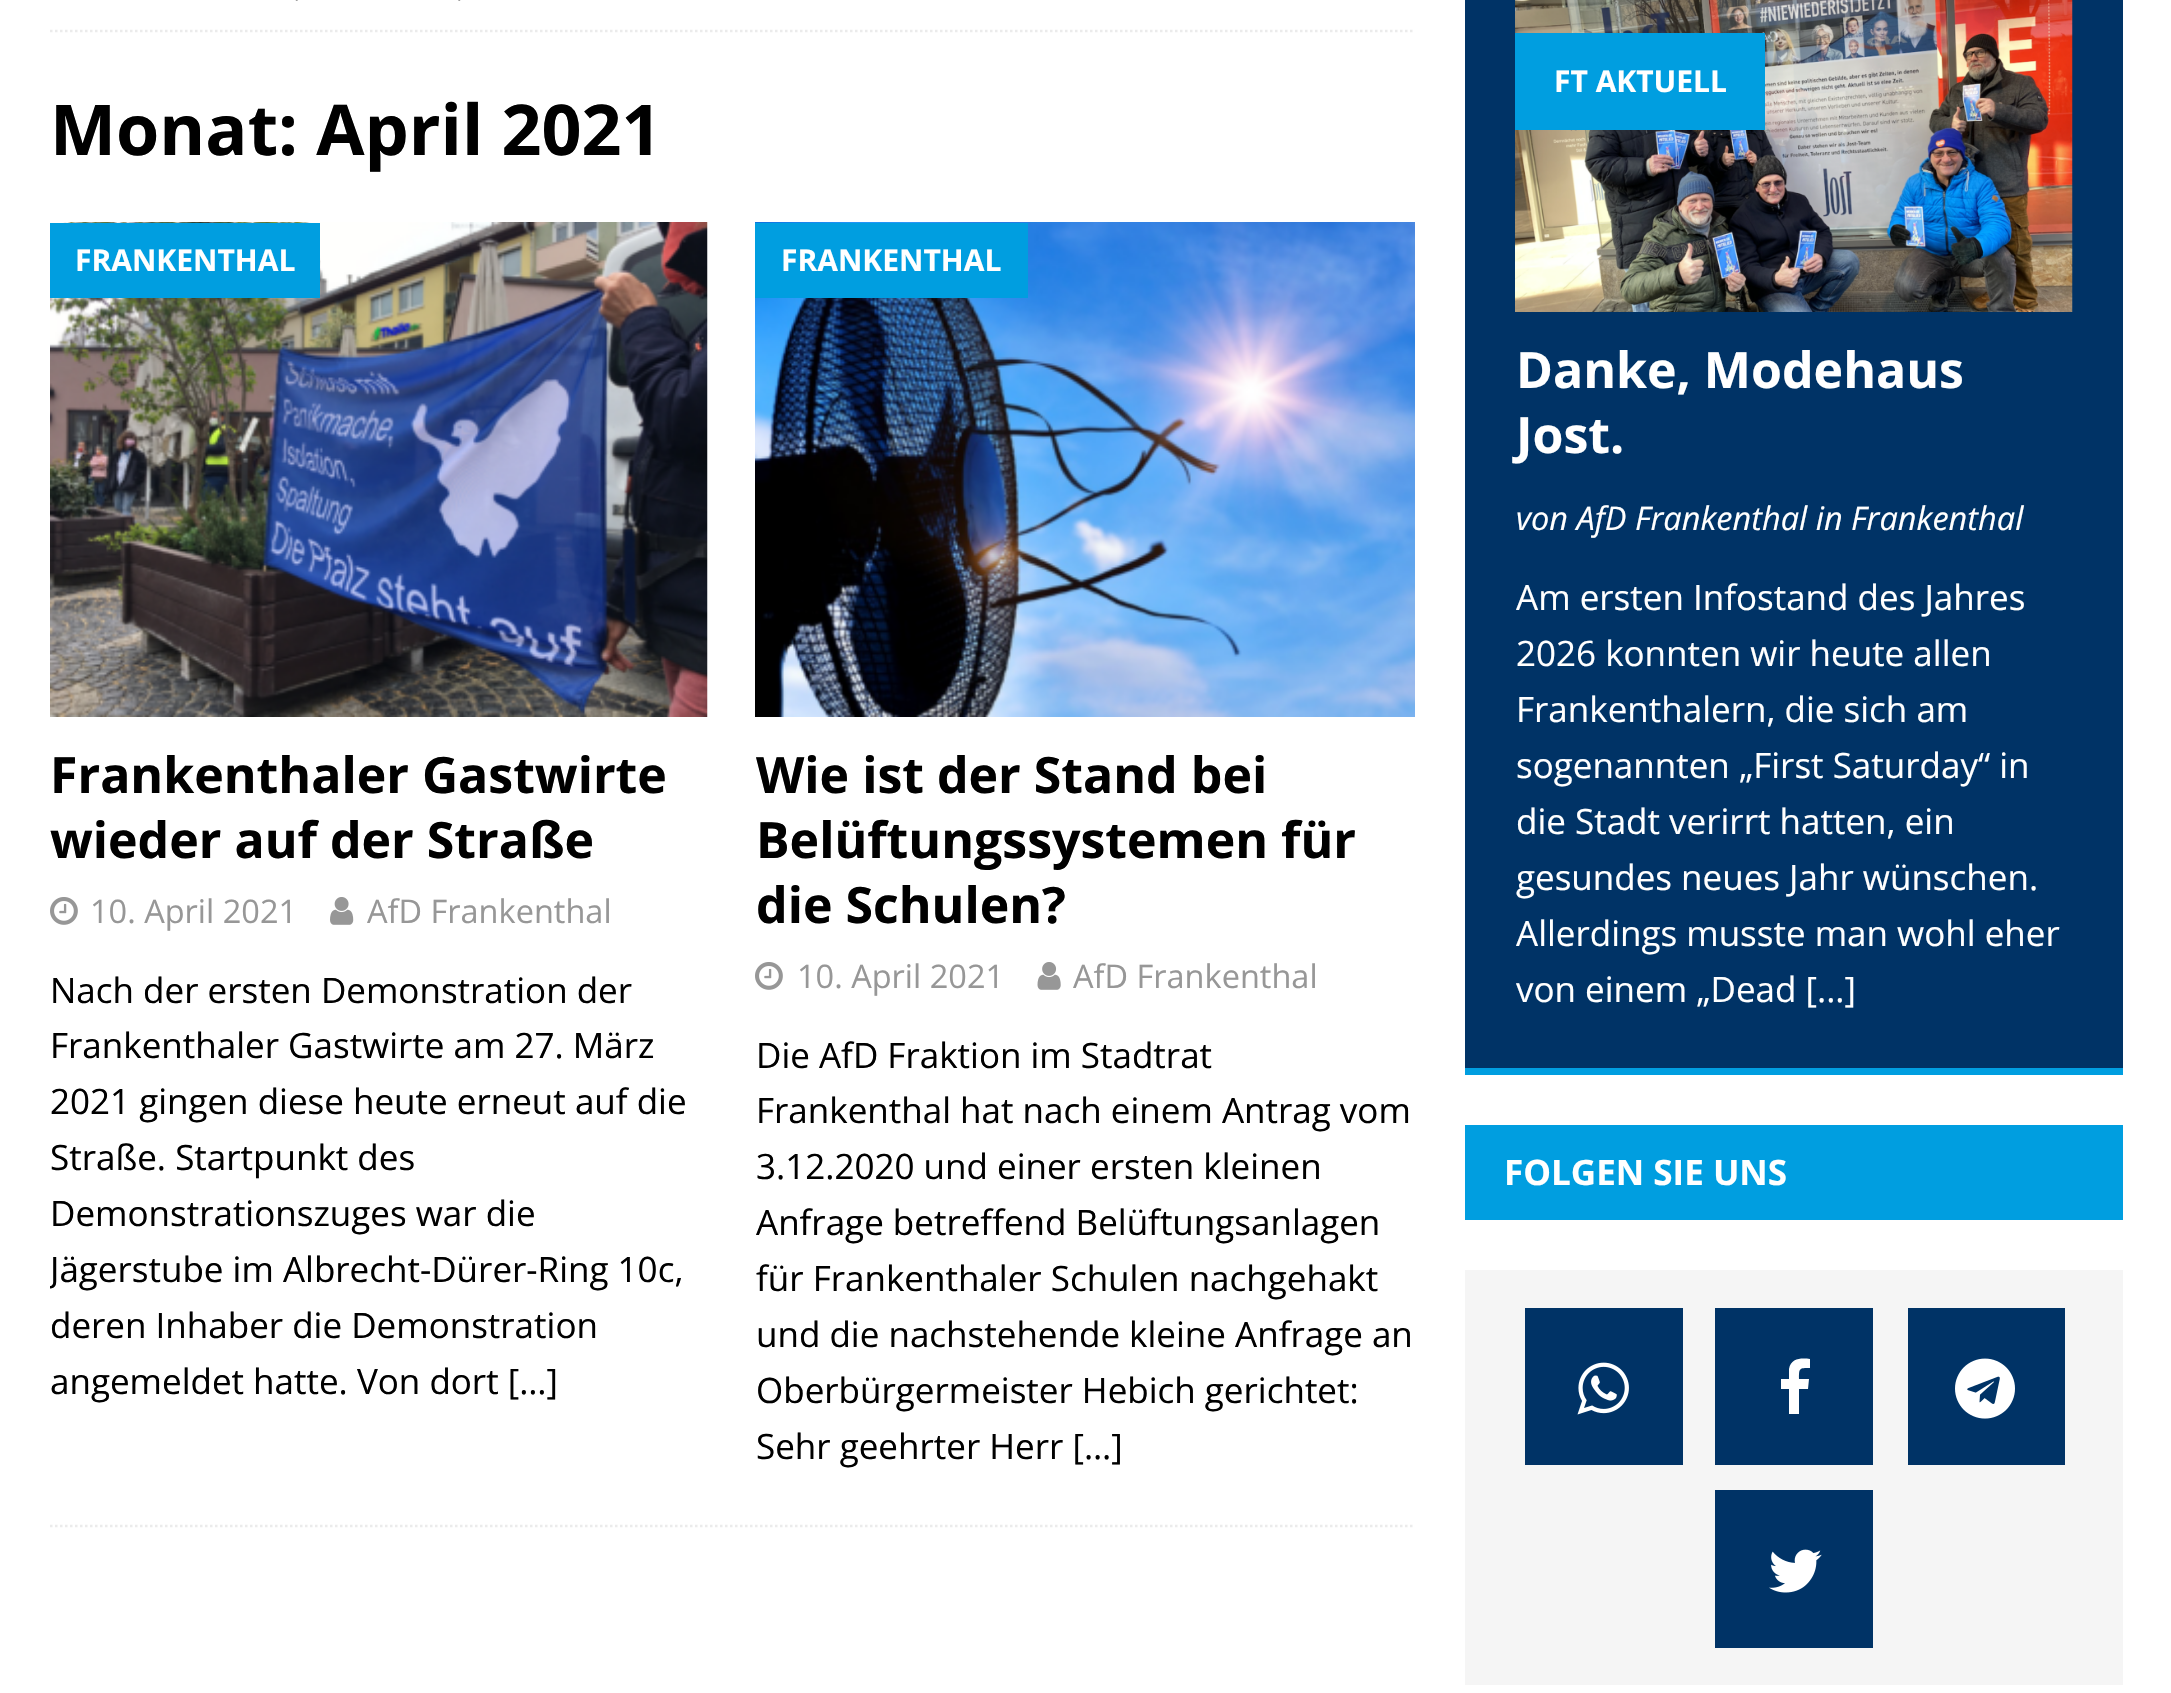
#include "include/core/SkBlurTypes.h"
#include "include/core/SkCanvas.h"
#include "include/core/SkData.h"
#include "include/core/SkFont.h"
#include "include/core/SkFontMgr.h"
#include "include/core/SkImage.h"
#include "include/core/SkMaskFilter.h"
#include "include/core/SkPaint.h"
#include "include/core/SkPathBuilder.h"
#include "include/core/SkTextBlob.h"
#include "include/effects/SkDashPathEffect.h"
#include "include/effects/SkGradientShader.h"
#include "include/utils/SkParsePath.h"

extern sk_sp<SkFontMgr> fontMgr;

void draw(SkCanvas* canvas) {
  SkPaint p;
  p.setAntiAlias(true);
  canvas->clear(SK_ColorWHITE);
  p.setStyle(SkPaint::kStroke_Style);
  p.setStrokeWidth(2.5f);
  p.setColor(SkColorSetRGB(235, 235, 235));
  p.setPathEffect(SkDashPathEffect::Make({{2.5f, 2.5f}}, 0));
  canvas->drawPath(SkPathBuilder().moveTo(50, 31).lineTo(1415, 31).detach(), p);
  p.setPathEffect(nullptr);
  canvas->drawImageRect(SkImages::DeferredFromEncodedData(SkData::MakeFromFileName("images/1.png")), SkRect::MakeLTRB(295, 0, 298, 1), SkSamplingOptions());
  canvas->drawImageRect(SkImages::DeferredFromEncodedData(SkData::MakeFromFileName("images/2.png")), SkRect::MakeLTRB(458, 0, 461, 1), SkSamplingOptions());
  p.setPathEffect(SkDashPathEffect::Make({{2.5f, 2.5f}}, 0));
  canvas->drawPath(SkPathBuilder().moveTo(50, 1526).lineTo(1415, 1526).detach(), p);
  p.setPathEffect(nullptr);
  canvas->drawImageRect(SkImages::DeferredFromEncodedData(SkData::MakeFromFileName("images/3.png")), SkRect::MakeLTRB(50, 222, 708, 717), SkSamplingOptions());
  p.setStyle(SkPaint::kFill_Style);
  p.setColor(SkColorSetRGB(0, 158, 224));
  canvas->drawRect(SkRect::MakeLTRB(50, 223, 320, 298), p);
  canvas->drawImageRect(SkImages::DeferredFromEncodedData(SkData::MakeFromFileName("images/4.png")), SkRect::MakeLTRB(50, 897, 78, 925), SkSamplingOptions());
  canvas->drawImageRect(SkImages::DeferredFromEncodedData(SkData::MakeFromFileName("images/5.png")), SkRect::MakeLTRB(330, 897, 354, 925), SkSamplingOptions());
  canvas->drawImageRect(SkImages::DeferredFromEncodedData(SkData::MakeFromFileName("images/6.png")), SkRect::MakeLTRB(755, 222, 1415, 717), SkSamplingOptions());
  canvas->drawRect(SkRect::MakeLTRB(755, 223, 1028, 298), p);
  canvas->drawImageRect(SkImages::DeferredFromEncodedData(SkData::MakeFromFileName("images/4.png")), SkRect::MakeLTRB(755, 962, 783, 990), SkSamplingOptions());
  canvas->drawImageRect(SkImages::DeferredFromEncodedData(SkData::MakeFromFileName("images/7.png")), SkRect::MakeLTRB(1037, 962, 1061, 990), SkSamplingOptions());
  p.setColor(SkColorSetRGB(0, 51, 102));
  canvas->drawRect(SkRect::MakeLTRB(1465, 0, 2123, 1068), p);
  p.setColor(SkColorSetRGB(0, 158, 224));
  canvas->drawRect(SkRect::MakeLTRB(1465, 1068, 2123, 1075), p);
  canvas->drawImageRect(SkImages::DeferredFromEncodedData(SkData::MakeFromFileName("images/8.png")), SkRect::MakeLTRB(1515, 0, 2073, 312), SkSamplingOptions());
  canvas->drawRect(SkRect::MakeLTRB(1515, 33, 1765, 130), p);
  canvas->drawRect(SkRect::MakeLTRB(1465, 1125, 2123, 1220), p);
  p.setColor(SkColorSetRGB(245, 245, 245));
  canvas->drawRect(SkRect::MakeLTRB(1465, 1270, 2123, 1685), p);
  p.setColor(SkColorSetRGB(0, 51, 102));
  canvas->drawRect(SkRect::MakeLTRB(1525, 1308, 1683, 1465), p);
  canvas->drawImageRect(SkImages::DeferredFromEncodedData(SkData::MakeFromFileName("images/9.png")), SkRect::MakeLTRB(1577, 1362, 1629, 1415), SkSamplingOptions());
  canvas->drawRect(SkRect::MakeLTRB(1715, 1308, 1873, 1465), p);
  p.setColor(SK_ColorWHITE);
  canvas->drawPath(SkPathBuilder().moveTo(1810, 1359).lineTo(1810, 1368).cubicTo(1799, 1368, 1799, 1368, 1799, 1379).lineTo(1809, 1379).lineTo(1808, 1389).lineTo(1799, 1389).lineTo(1799, 1414).lineTo(1789, 1414).lineTo(1789, 1389).lineTo(1781, 1389).lineTo(1781, 1379).lineTo(1789, 1379).lineTo(1789, 1369).cubicTo(1791, 1358, 1801, 1358, 1810, 1359).close().detach(), p);
  p.setColor(SkColorSetRGB(0, 51, 102));
  canvas->drawRect(SkRect::MakeLTRB(1908, 1308, 2065, 1465), p);
  canvas->drawImageRect(SkImages::DeferredFromEncodedData(SkData::MakeFromFileName("images/10.png")), SkRect::MakeLTRB(1955, 1358, 2015, 1419), SkSamplingOptions());
  canvas->drawRect(SkRect::MakeLTRB(1715, 1490, 1873, 1648), p);
  canvas->drawImageRect(SkImages::DeferredFromEncodedData(SkData::MakeFromFileName("images/11.png")), SkRect::MakeLTRB(1769, 1549, 1822, 1593), SkSamplingOptions());
  SkFont font1(fontMgr->matchFamilyStyle("Open Sans", SkFontStyle::Bold()), 70);
  font1.setSubpixel(true);
  p.setColor(SK_ColorBLACK);
  canvas->drawString("Monat: April 2021", 50, 155, font1, p);
  SkFont font2(fontMgr->matchFamilyStyle("Open Sans", SkFontStyle::Bold()), 30);
  font2.setSubpixel(true);
  p.setColor(SK_ColorWHITE);
  canvas->drawString("FRANKENTHAL", 75, 271, font2, p);
  SkFont font3(fontMgr->matchFamilyStyle("Open Sans", SkFontStyle::Bold()), 50);
  font3.setSubpixel(true);
  p.setColor(SK_ColorBLACK);
  canvas->drawString("Frankenthaler Gastwirte", 50, 793, font3, p);
  canvas->drawString("wieder auf der Straße", 50, 858, font3, p);
  SkFont font4(fontMgr->matchFamilyStyle("Open Sans", SkFontStyle::Normal()), 32.5f);
  font4.setSubpixel(true);
  p.setColor(SkColorSetRGB(151, 151, 151));
  canvas->drawString("10. April 2021", 90, 923, font4, p);
  canvas->drawString("AfD Frankenthal", 367, 923, font4, p);
  SkFont font5(fontMgr->matchFamilyStyle("Open Sans", SkFontStyle::Normal()), 35);
  font5.setSubpixel(true);
  p.setColor(SK_ColorBLACK);
  canvas->drawString("Nach der ersten Demonstration der", 50, 1003, font5, p);
  canvas->drawString("Frankenthaler Gastwirte am 27. März", 50, 1058, font5, p);
  canvas->drawString("2021 gingen diese heute erneut auf die", 50, 1114, font5, p);
  canvas->drawString("Straße. Startpunkt des", 50, 1170, font5, p);
  canvas->drawString("Demonstrationszuges war die", 50, 1226, font5, p);
  canvas->save();
  canvas->clipRect(SkRect::MakeLTRB(50, 223, 708, 1410));
  canvas->drawString("Jägerstube im Albrecht-Dürer-Ring 10c,", 50, 1282, font5, p);
  canvas->restore();
  canvas->drawString("deren Inhaber die Demonstration", 50, 1338, font5, p);
  canvas->drawString("angemeldet hatte. Von dort […]", 50, 1394, font5, p);
  p.setColor(SK_ColorWHITE);
  canvas->drawString("FRANKENTHAL", 781, 271, font2, p);
  p.setColor(SK_ColorBLACK);
  canvas->drawString("Wie ist der Stand bei", 756, 793, font3, p);
  canvas->drawString("Belüftungssystemen für", 756, 858, font3, p);
  canvas->drawString("die Schulen?", 756, 923, font3, p);
  p.setColor(SkColorSetRGB(151, 151, 151));
  canvas->drawString("10. April 2021", 797, 988, font4, p);
  canvas->drawString("AfD Frankenthal", 1073, 988, font4, p);
  p.setColor(SK_ColorBLACK);
  canvas->drawString("Die AfD Fraktion im Stadtrat", 756, 1068, font5, p);
  canvas->drawString("Frankenthal hat nach einem Antrag vom", 756, 1123, font5, p);
  canvas->drawString("3.12.2020 und einer ersten kleinen", 756, 1179, font5, p);
  canvas->drawString("Anfrage betreffend Belüftungsanlagen", 756, 1235, font5, p);
  canvas->drawString("für Frankenthaler Schulen nachgehakt", 756, 1291, font5, p);
  canvas->drawString("und die nachstehende kleine Anfrage an", 756, 1347, font5, p);
  canvas->drawString("Oberbürgermeister Hebich gerichtet:", 756, 1403, font5, p);
  canvas->drawString("Sehr geehrter Herr […]", 756, 1459, font5, p);
  p.setColor(SK_ColorWHITE);
  canvas->drawString("FT AKTUELL", 1554, 92, font2, p);
  canvas->drawString("Danke, Modehaus", 1516, 388, font3, p);
  canvas->drawString("Jost.", 1516, 453, font3, p);
  SkFont font6(fontMgr->matchFamilyStyle("Open Sans", SkFontStyle::Italic()), 32.5f);
  font6.setSubpixel(true);
  canvas->drawString("von AfD Frankenthal in Frankenthal", 1516, 530, font6, p);
  canvas->drawString("Am ersten Infostand des Jahres", 1516, 610, font5, p);
  canvas->drawString("2026 konnten wir heute allen", 1516, 666, font5, p);
  canvas->drawString("Frankenthalern, die sich am", 1516, 722, font5, p);
  canvas->drawString("sogenannten „First Saturday“ in", 1516, 778, font5, p);
  canvas->drawString("die Stadt verirrt hatten, ein", 1516, 834, font5, p);
  canvas->drawString("gesundes neues Jahr wünschen.", 1516, 890, font5, p);
  canvas->drawString("Allerdings musste man wohl eher", 1516, 946, font5, p);
  canvas->drawString("von einem „Dead [...]", 1516, 1002, font5, p);
  SkFont font7(fontMgr->matchFamilyStyle("Open Sans", SkFontStyle::Bold()), 35);
  font7.setSubpixel(true);
  canvas->drawString("FOLGEN SIE UNS", 1504, 1185, font7, p);
}
